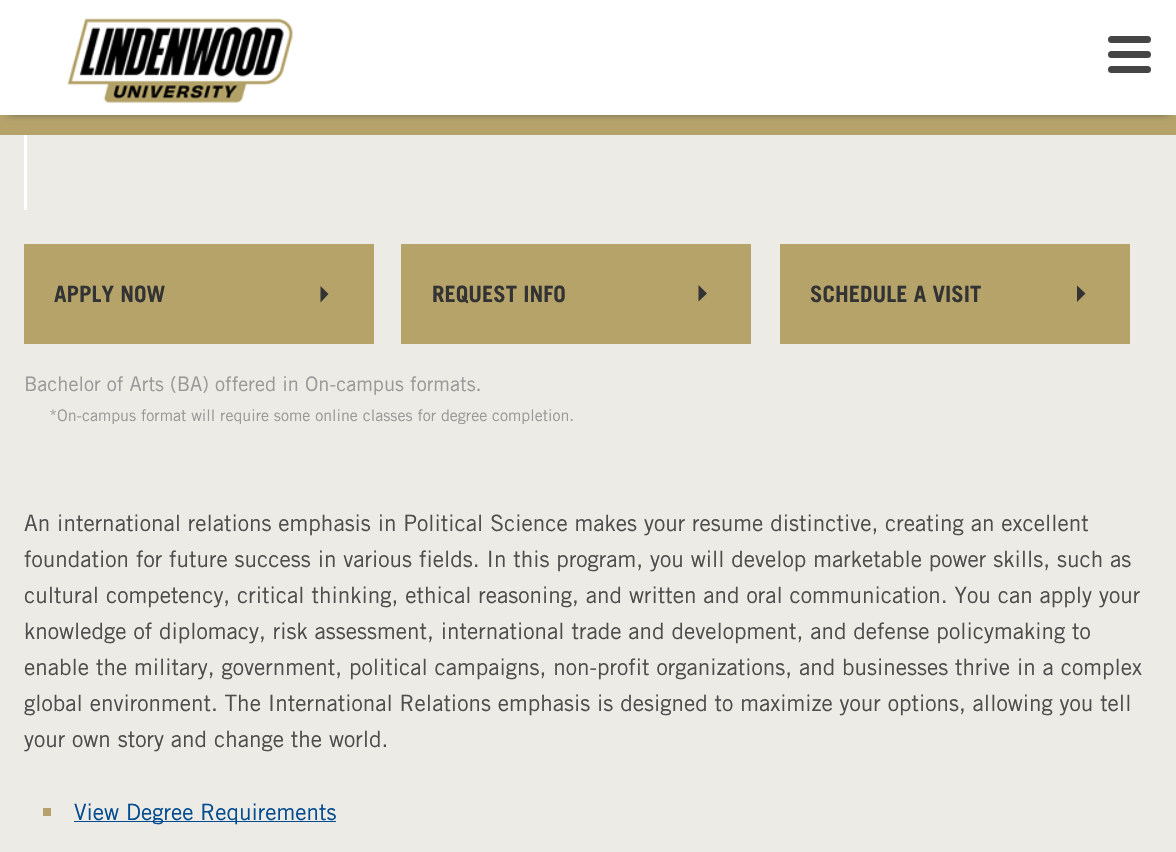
#include "include/core/SkBlurTypes.h"
#include "include/core/SkCanvas.h"
#include "include/core/SkData.h"
#include "include/core/SkFont.h"
#include "include/core/SkFontMgr.h"
#include "include/core/SkImage.h"
#include "include/core/SkMaskFilter.h"
#include "include/core/SkPaint.h"
#include "include/core/SkPathBuilder.h"
#include "include/core/SkTextBlob.h"
#include "include/effects/SkDashPathEffect.h"
#include "include/effects/SkGradientShader.h"
#include "include/utils/SkParsePath.h"

extern sk_sp<SkFontMgr> fontMgr;

void draw(SkCanvas* canvas) {
  SkPaint p;
  p.setAntiAlias(true);
  canvas->clear(SkColorSetRGB(237, 235, 229));
  p.setColor(SkColorSetRGB(181, 163, 106));
  canvas->drawRect(SkRect::MakeLTRB(0, 115, 1176, 135), p);
  p.setColor(SkColorSetRGB(68, 69, 69));
  p.setMaskFilter(SkMaskFilter::MakeBlur(kNormal_SkBlurStyle, 4));
  canvas->drawRect(SkRect::MakeLTRB(8, 13, 1169, 113), p);
  p.setMaskFilter(nullptr);
  p.setColor(SK_ColorWHITE);
  canvas->drawRect(SkRect::MakeLTRB(0, 0, 1176, 115), p);
  canvas->drawImageRect(SkImages::DeferredFromEncodedData(SkData::MakeFromFileName("images/1.png")), SkRect::MakeLTRB(67, 18, 293, 103), SkSamplingOptions());
  p.setColor(SkColorSetRGB(69, 69, 70));
  canvas->drawRoundRect(SkRect::MakeLTRB(1108, 36, 1151, 43), 3.5f, 3.5f, p);
  canvas->drawRoundRect(SkRect::MakeLTRB(1108, 51, 1151, 58), 3.5f, 3.5f, p);
  canvas->drawRoundRect(SkRect::MakeLTRB(1108, 66, 1151, 73), 3.5f, 3.5f, p);
  p.setColor(SK_ColorWHITE);
  canvas->drawRect(SkRect::MakeLTRB(24, 135, 27, 210), p);
  p.setColor(SkColorSetRGB(181, 163, 106));
  canvas->drawRect(SkRect::MakeLTRB(24, 244, 374, 344), p);
  p.setColor(SkColorSetRGB(51, 51, 51));
  canvas->drawPath(SkPathBuilder().moveTo(328.5f, 294).lineTo(320.5f, 302.5f).lineTo(320.5f, 286).close().detach(), p);
  p.setColor(SkColorSetRGB(181, 163, 106));
  canvas->drawRect(SkRect::MakeLTRB(401, 244, 751, 344), p);
  p.setColor(SkColorSetRGB(51, 51, 51));
  canvas->drawPath(SkPathBuilder().moveTo(707, 293.5f).lineTo(698.5f, 285).lineTo(698.5f, 301.5f).close().detach(), p);
  p.setColor(SkColorSetRGB(181, 163, 106));
  canvas->drawRect(SkRect::MakeLTRB(780, 244, 1130, 344), p);
  p.setColor(SkColorSetRGB(51, 51, 51));
  canvas->drawPath(SkPathBuilder().moveTo(1085.5f, 293.5f).lineTo(1077, 285.5f).lineTo(1077, 302).close().detach(), p);
  p.setColor(SkColorSetRGB(234, 234, 234));
  canvas->drawRect(SkRect::MakeLTRB(24, 455, 1153, 456), p);
  p.setColor(SkColorSetRGB(182, 161, 107));
  canvas->drawRect(SkRect::MakeLTRB(43, 808, 51, 816), p);
  p.setColor(SkColorSetRGB(0, 75, 144));
  canvas->drawRect(SkRect::MakeLTRB(74, 821, 336, 822), p);
  SkFont font1(fontMgr->matchFamilyStyle("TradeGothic", SkFontStyle::Bold()), 22.5f);
  font1.setSubpixel(true);
  p.setColor(SkColorSetRGB(51, 51, 51));
  canvas->drawString("APPLY NOW", 54, 302, font1, p);
  canvas->drawString("REQUEST INFO", 432, 302, font1, p);
  canvas->drawString("SCHEDULE A VISIT", 810, 302, font1, p);
  SkFont font2(fontMgr->matchFamilyStyle("Trade Gothic", SkFontStyle::Normal()), 20);
  font2.setSubpixel(true);
  p.setColor(SkColorSetRGB(153, 153, 153));
  canvas->drawString("Bachelor of Arts (BA) offered in On-campus formats.", 24, 391, font2, p);
  SkFont font3(fontMgr->matchFamilyStyle("Trade Gothic", SkFontStyle::Normal()), 16);
  font3.setSubpixel(true);
  canvas->drawString("*On-campus format will require some online classes for degree completion.", 49, 421, font3, p);
  SkFont font4(fontMgr->matchFamilyStyle("TradeGothic", SkFontStyle(500, SkFontStyle::kNormal_Width, SkFontStyle::kUpright_Slant)), 22.5f);
  font4.setSubpixel(true);
  p.setColor(SkColorSetRGB(77, 77, 77));
  canvas->drawString("An international relations emphasis in Political Science makes your resume distinctive, creating an excellent", 24, 531, font4, p);
  canvas->drawString("foundation for future success in various fields. In this program, you will develop marketable power skills, such as", 24, 567, font4, p);
  canvas->drawString("cultural competency, critical thinking, ethical reasoning, and written and oral communication. You can apply your", 24, 603, font4, p);
  canvas->drawString("knowledge of diplomacy, risk assessment, international trade and development, and defense policymaking to", 24, 639, font4, p);
  canvas->drawString("enable the military, government, political campaigns, non-profit organizations, and businesses thrive in a complex", 24, 675, font4, p);
  canvas->drawString("global environment. The International Relations emphasis is designed to maximize your options, allowing you tell", 24, 711, font4, p);
  canvas->drawString("your own story and change the world.", 24, 747, font4, p);
  p.setColor(SkColorSetRGB(0, 75, 144));
  canvas->drawString("View Degree Requirements", 74, 820, font4, p);
}
